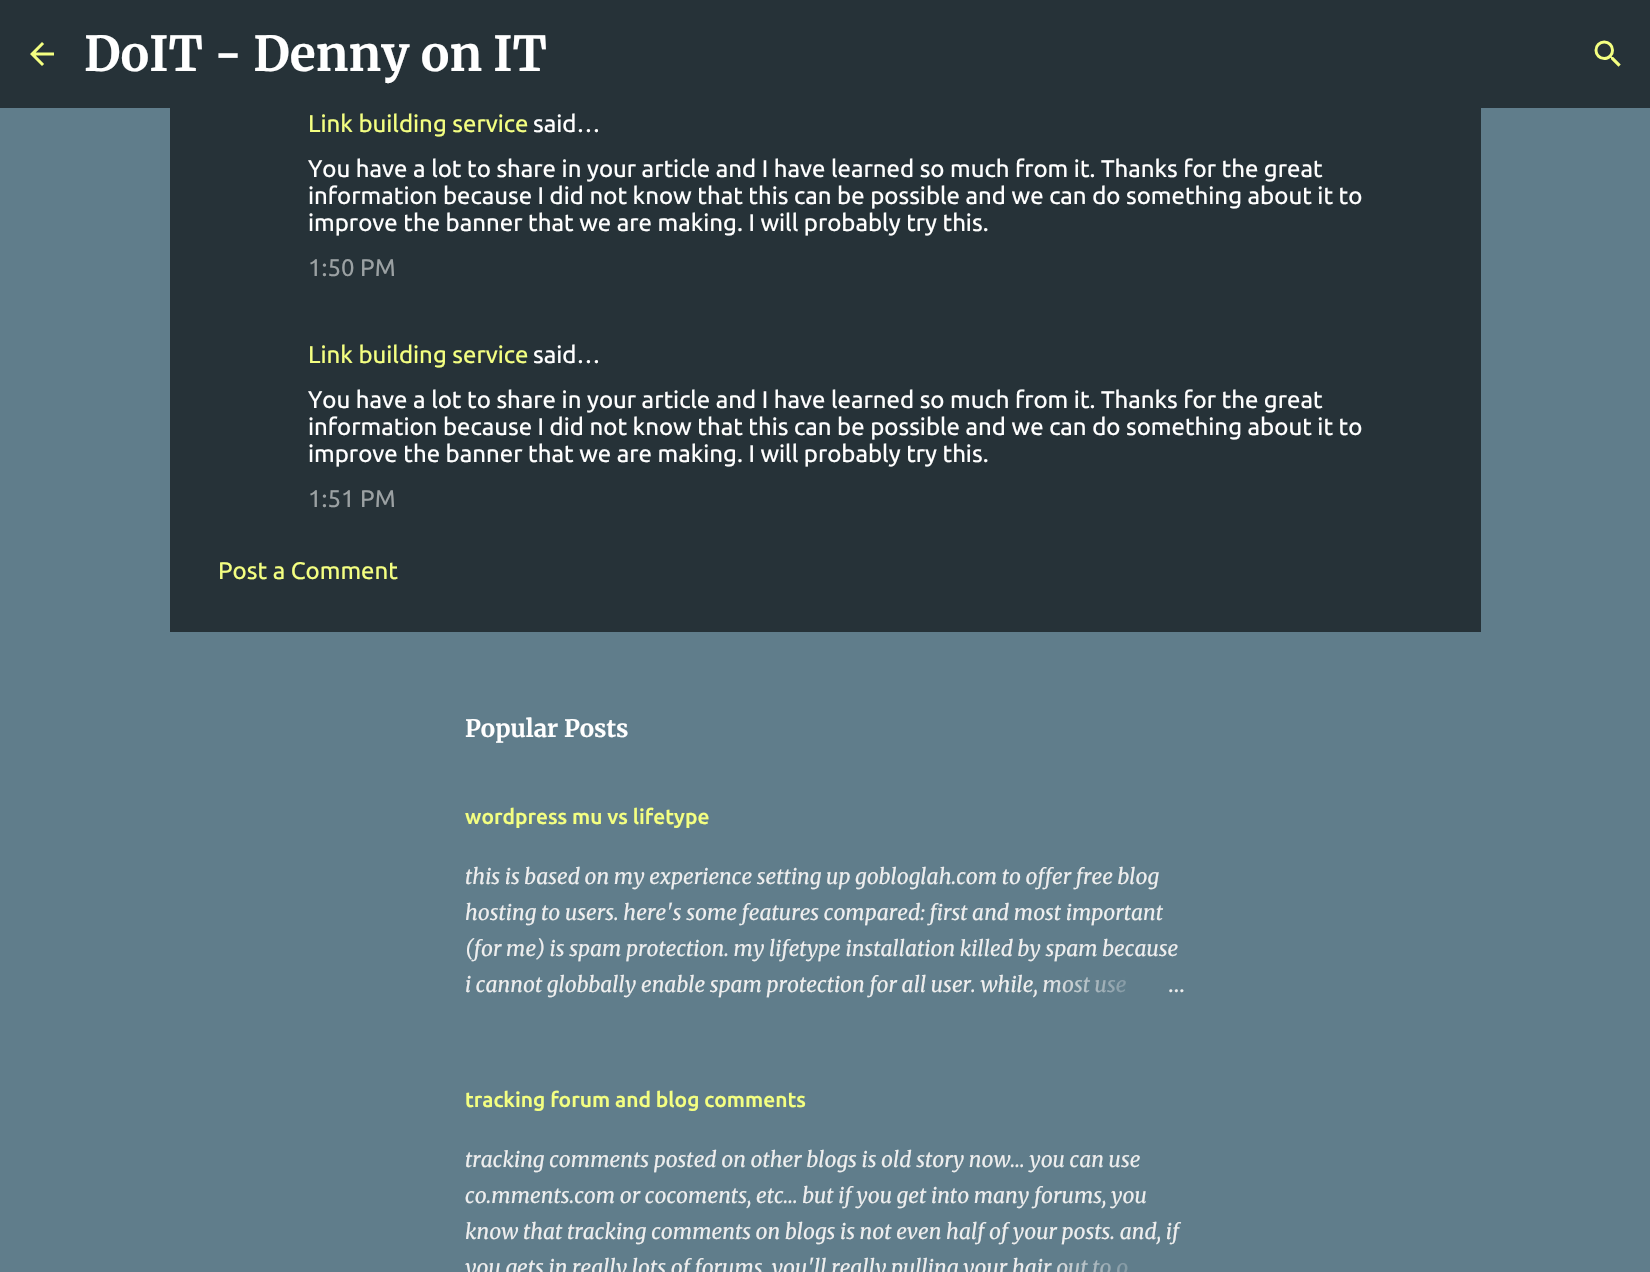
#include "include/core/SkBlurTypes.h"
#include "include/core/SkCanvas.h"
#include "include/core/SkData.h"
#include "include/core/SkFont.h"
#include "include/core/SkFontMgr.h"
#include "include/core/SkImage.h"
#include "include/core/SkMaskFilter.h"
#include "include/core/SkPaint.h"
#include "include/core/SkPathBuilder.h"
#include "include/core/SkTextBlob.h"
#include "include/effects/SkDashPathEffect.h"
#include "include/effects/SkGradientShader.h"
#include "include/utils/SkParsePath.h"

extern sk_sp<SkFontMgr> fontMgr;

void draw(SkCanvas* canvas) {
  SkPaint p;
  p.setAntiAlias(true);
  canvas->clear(SkColorSetRGB(96, 125, 139));
  p.setColor(SkColorSetRGB(38, 50, 56));
  canvas->drawRect(SkRect::MakeLTRB(0, 0, 1650, 108), p);
  canvas->drawImageRect(SkImages::DeferredFromEncodedData(SkData::MakeFromFileName("images/1.png")), SkRect::MakeLTRB(30, 42, 54, 66), SkSamplingOptions());
  canvas->drawImageRect(SkImages::DeferredFromEncodedData(SkData::MakeFromFileName("images/2.png")), SkRect::MakeLTRB(1594, 40, 1621, 67), SkSamplingOptions());
  canvas->drawRect(SkRect::MakeLTRB(170, 108, 1481, 632), p);
  SkFont font1(fontMgr->matchFamilyStyle("Merriweather", SkFontStyle::Bold()), 48);
  font1.setSubpixel(true);
  p.setColor(SK_ColorWHITE);
  canvas->drawString("DoIT - Denny on IT", 84, 71, font1, p);
  SkFont font2(fontMgr->matchFamilyStyle("Ubuntu", SkFontStyle::Normal()), 24);
  font2.setSubpixel(true);
  p.setColor(SkColorSetRGB(244, 255, 129));
  canvas->drawString("Link building service", 308, 132, font2, p);
  p.setColor(SK_ColorWHITE);
  canvas->drawString("said…", 533, 132, font2, p);
  canvas->drawString("You have a lot to share in your article and I have learned so much from it. Thanks for the great", 308, 177, font2, p);
  canvas->drawString("information because I did not know that this can be possible and we can do something about it to", 308, 204, font2, p);
  canvas->drawString("improve the banner that we are making. I will probably try this.", 308, 231, font2, p);
  p.setColor(SkColorSetRGB(155, 161, 163));
  canvas->drawString("1:50 PM", 308, 276, font2, p);
  p.setColor(SkColorSetRGB(244, 255, 129));
  canvas->drawString("Link building service", 308, 363, font2, p);
  p.setColor(SK_ColorWHITE);
  canvas->drawString("said…", 533, 363, font2, p);
  canvas->drawString("You have a lot to share in your article and I have learned so much from it. Thanks for the great", 308, 408, font2, p);
  canvas->drawString("information because I did not know that this can be possible and we can do something about it to", 308, 435, font2, p);
  canvas->drawString("improve the banner that we are making. I will probably try this.", 308, 462, font2, p);
  p.setColor(SkColorSetRGB(155, 161, 163));
  canvas->drawString("1:51 PM", 308, 507, font2, p);
  p.setColor(SkColorSetRGB(244, 255, 129));
  canvas->drawString("Post a Comment", 218, 579, font2, p);
  SkFont font3(fontMgr->matchFamilyStyle("Merriweather", SkFontStyle::Bold()), 24);
  font3.setSubpixel(true);
  p.setColor(SK_ColorWHITE);
  canvas->drawString("Popular Posts", 465, 737, font3, p);
  SkFont font4(fontMgr->matchFamilyStyle("Ubuntu", SkFontStyle(500, SkFontStyle::kNormal_Width, SkFontStyle::kUpright_Slant)), 21);
  font4.setSubpixel(true);
  p.setColor(SkColorSetRGB(244, 255, 129));
  canvas->drawString("wordpress mu vs lifetype", 465, 824, font4, p);
  SkFont font5(fontMgr->matchFamilyStyle("Merriweather", SkFontStyle::Italic()), 21);
  font5.setSubpixel(true);
  p.setColor(SkColorSetRGB(238, 238, 238));
  canvas->drawString("this is based on my experience setting up gobloglah.com to offer free blog", 465, 884, font5, p);
  canvas->drawString("hosting to users. here's some features compared: first and most important", 465, 920, font5, p);
  canvas->drawString("(for me) is spam protection. my lifetype installation killed by spam because", 465, 956, font5, p);
  canvas->drawString("i cannot globbally enable spam protection for all user. while, most use", 465, 992, font5, p);
  {
    const SkColor colors[] = {SkColorSetRGB(96, 125, 139), SkColorSetRGB(96, 125, 139), SkColorSetARGB(0, 96, 125, 139)};
    const float stops[] = {0, 0.2f, 1};
    const SkPoint ends[] = {{1185, 984}, {1041, 984}};
    p.setShader(SkGradientShader::MakeLinear(ends, colors, stops, 3, SkTileMode::kClamp));
    p.setAlpha(255);
  }
  canvas->drawRect(SkRect::MakeLTRB(1044, 977, 1126, 993), p);
  SkFont font6(fontMgr->matchFamilyStyle("Merriweather", SkFontStyle::Normal()), 21);
  font6.setSubpixel(true);
  p.setShader(nullptr);
  p.setColor(SkColorSetRGB(238, 238, 238));
  canvas->drawString("…", 1168, 992, font6, p);
  p.setColor(SkColorSetRGB(244, 255, 129));
  canvas->drawString("tracking forum and blog comments", 465, 1107, font4, p);
  p.setColor(SkColorSetRGB(238, 238, 238));
  canvas->drawString("tracking comments posted on other blogs is old story now... you can use", 465, 1167, font5, p);
  canvas->drawString("co.mments.com or cocoments, etc... but if you get into many forums, you", 465, 1203, font5, p);
  canvas->drawString("know that tracking comments on blogs is not even half of your posts. and, if", 465, 1239, font5, p);
  canvas->drawString("you gets in really lots of forums, you'll really pulling your hair out to o", 465, 1275, font5, p);
  {
    const SkColor colors[] = {SkColorSetRGB(96, 125, 139), SkColorSetRGB(96, 125, 139), SkColorSetARGB(0, 96, 125, 139)};
    const float stops[] = {0, 0.2f, 1};
    const SkPoint ends[] = {{1185, 1268}, {1041, 1268}};
    p.setShader(SkGradientShader::MakeLinear(ends, colors, stops, 3, SkTileMode::kClamp));
    p.setAlpha(255);
  }
  canvas->drawRect(SkRect::MakeLTRB(1045, 1260, 1128, 1272), p);
}
